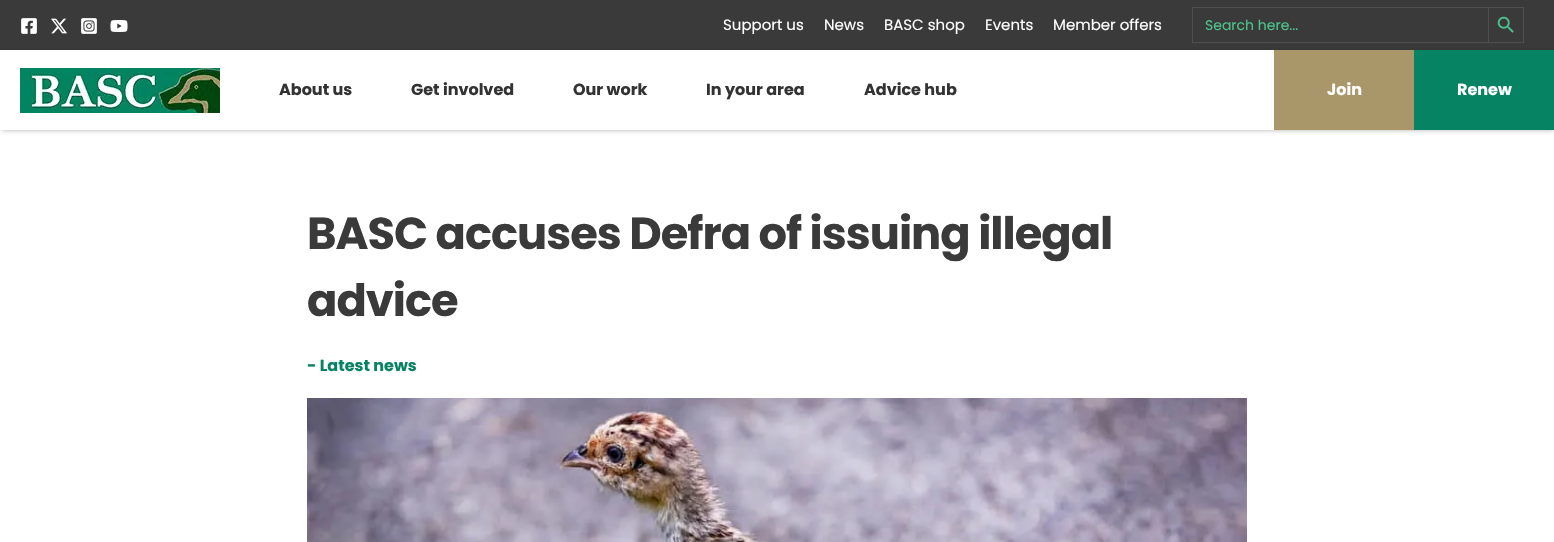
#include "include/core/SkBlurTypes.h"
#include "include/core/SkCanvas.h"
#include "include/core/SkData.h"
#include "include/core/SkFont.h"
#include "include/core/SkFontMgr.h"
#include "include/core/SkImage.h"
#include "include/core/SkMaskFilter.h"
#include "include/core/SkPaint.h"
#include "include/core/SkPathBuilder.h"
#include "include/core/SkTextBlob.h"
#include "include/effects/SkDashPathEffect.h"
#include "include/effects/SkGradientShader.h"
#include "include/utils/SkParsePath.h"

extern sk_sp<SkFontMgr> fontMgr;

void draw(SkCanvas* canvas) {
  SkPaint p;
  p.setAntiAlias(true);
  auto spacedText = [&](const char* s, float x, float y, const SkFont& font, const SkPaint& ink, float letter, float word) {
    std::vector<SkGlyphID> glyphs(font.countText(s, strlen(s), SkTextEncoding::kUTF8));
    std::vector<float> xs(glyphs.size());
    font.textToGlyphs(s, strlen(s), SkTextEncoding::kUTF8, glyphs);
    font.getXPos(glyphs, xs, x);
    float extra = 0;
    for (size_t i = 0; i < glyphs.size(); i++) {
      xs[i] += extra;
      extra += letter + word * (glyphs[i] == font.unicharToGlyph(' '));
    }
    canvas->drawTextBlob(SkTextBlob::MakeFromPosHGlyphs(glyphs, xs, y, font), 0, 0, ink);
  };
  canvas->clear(SK_ColorWHITE);
  p.setColor(SkColorSetRGB(58, 58, 58));
  canvas->drawRect(SkRect::MakeLTRB(0, 0, 1554, 50), p);
  canvas->drawImageRect(SkImages::DeferredFromEncodedData(SkData::MakeFromFileName("images/1.png")), SkRect::MakeLTRB(21, 18, 37, 34), SkSamplingOptions());
  canvas->drawImageRect(SkImages::DeferredFromEncodedData(SkData::MakeFromFileName("images/2.png")), SkRect::MakeLTRB(51, 18, 67, 34), SkSamplingOptions());
  canvas->drawImageRect(SkImages::DeferredFromEncodedData(SkData::MakeFromFileName("images/3.png")), SkRect::MakeLTRB(81, 18, 97, 34), SkSamplingOptions());
  canvas->drawImageRect(SkImages::DeferredFromEncodedData(SkData::MakeFromFileName("images/4.png")), SkRect::MakeLTRB(110, 20, 128, 32), SkSamplingOptions());
  p.setColor(SkColorSetRGB(79, 79, 79));
  canvas->drawRect(SkRect::MakeLTRB(1192, 7, 1488, 8), p);
  canvas->drawRect(SkRect::MakeLTRB(1192, 42, 1488, 43), p);
  canvas->drawRect(SkRect::MakeLTRB(1192, 7, 1193, 43), p);
  p.setStyle(SkPaint::kStroke_Style);
  p.setStrokeWidth(1);
  canvas->drawRect(SkRect::MakeLTRB(1488.5f, 7.5f, 1523.5f, 42.5f), p);
  canvas->drawImageRect(SkImages::DeferredFromEncodedData(SkData::MakeFromFileName("images/5.png")), SkRect::MakeLTRB(1497, 16, 1514, 33), SkSamplingOptions());
  canvas->save();
  canvas->clipPath(SkPathBuilder(SkPathFillType::kEvenOdd).moveTo(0, 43).lineTo(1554, 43).lineTo(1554, 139).lineTo(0, 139).close().moveTo(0, 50).lineTo(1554, 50).lineTo(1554, 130).lineTo(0, 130).close().detach(), true);
  p.setStyle(SkPaint::kFill_Style);
  p.setColor(SkColorSetARGB(79, 0, 0, 0));
  p.setMaskFilter(SkMaskFilter::MakeBlur(kNormal_SkBlurStyle, 2.5f));
  canvas->drawRect(SkRect::MakeLTRB(2, 52, 1554, 130), p);
  p.setMaskFilter(nullptr);
  canvas->restore();
  canvas->drawImageRect(SkImages::DeferredFromEncodedData(SkData::MakeFromFileName("images/6.png")), SkRect::MakeLTRB(20, 68, 220, 113), SkSamplingOptions());
  p.setColor(SkColorSetRGB(169, 151, 105));
  canvas->drawRect(SkRect::MakeLTRB(1274, 50, 1414, 130), p);
  p.setColor(SkColorSetRGB(6, 131, 99));
  canvas->drawRect(SkRect::MakeLTRB(1414, 50, 1554, 130), p);
  canvas->drawImageRect(SkImages::DeferredFromEncodedData(SkData::MakeFromFileName("images/7.png")), SkRect::MakeLTRB(307, 398, 1247, 542), SkSamplingOptions());
  SkFont font1(fontMgr->matchFamilyStyle("Poppins", SkFontStyle::Normal()), 15);
  font1.setSubpixel(true);
  p.setColor(SK_ColorWHITE);
  canvas->drawString("Support us", 723, 30, font1, p);
  canvas->drawString("News", 824, 30, font1, p);
  canvas->drawString("BASC shop", 884, 30, font1, p);
  canvas->drawString("Events", 985, 30, font1, p);
  canvas->drawString("Member offers", 1053, 30, font1, p);
  SkFont font2(fontMgr->matchFamilyStyle("Poppins", SkFontStyle::Normal()), 14);
  font2.setSubpixel(true);
  p.setColor(SkColorSetRGB(77, 196, 141));
  canvas->drawString("Search here...", 1205, 30, font2, p);
  SkFont font3(fontMgr->matchFamilyStyle("Poppins", SkFontStyle::Bold()), 16);
  font3.setSubpixel(true);
  p.setColor(SkColorSetRGB(51, 51, 51));
  canvas->drawString("About us", 279, 95, font3, p);
  canvas->drawString("Get involved", 411, 95, font3, p);
  canvas->drawString("Our work", 573, 95, font3, p);
  canvas->drawString("In your area", 706, 95, font3, p);
  canvas->drawString("Advice hub", 864, 95, font3, p);
  p.setColor(SK_ColorWHITE);
  canvas->drawString("Join", 1327, 95, font3, p);
  canvas->drawString("Renew", 1457, 95, font3, p);
  SkFont font4(fontMgr->matchFamilyStyle("Poppins", SkFontStyle::Bold()), 44.75f);
  font4.setSubpixel(true);
  p.setColor(SkColorSetRGB(58, 58, 58));
  spacedText("BASC accuses Defra of issuing illegal", 307, 249, font4, p, -1, 0);
  spacedText("advice", 307, 316, font4, p, -1, 0);
  p.setColor(SkColorSetRGB(6, 131, 99));
  canvas->drawString("- Latest news", 307, 371, font3, p);
}
